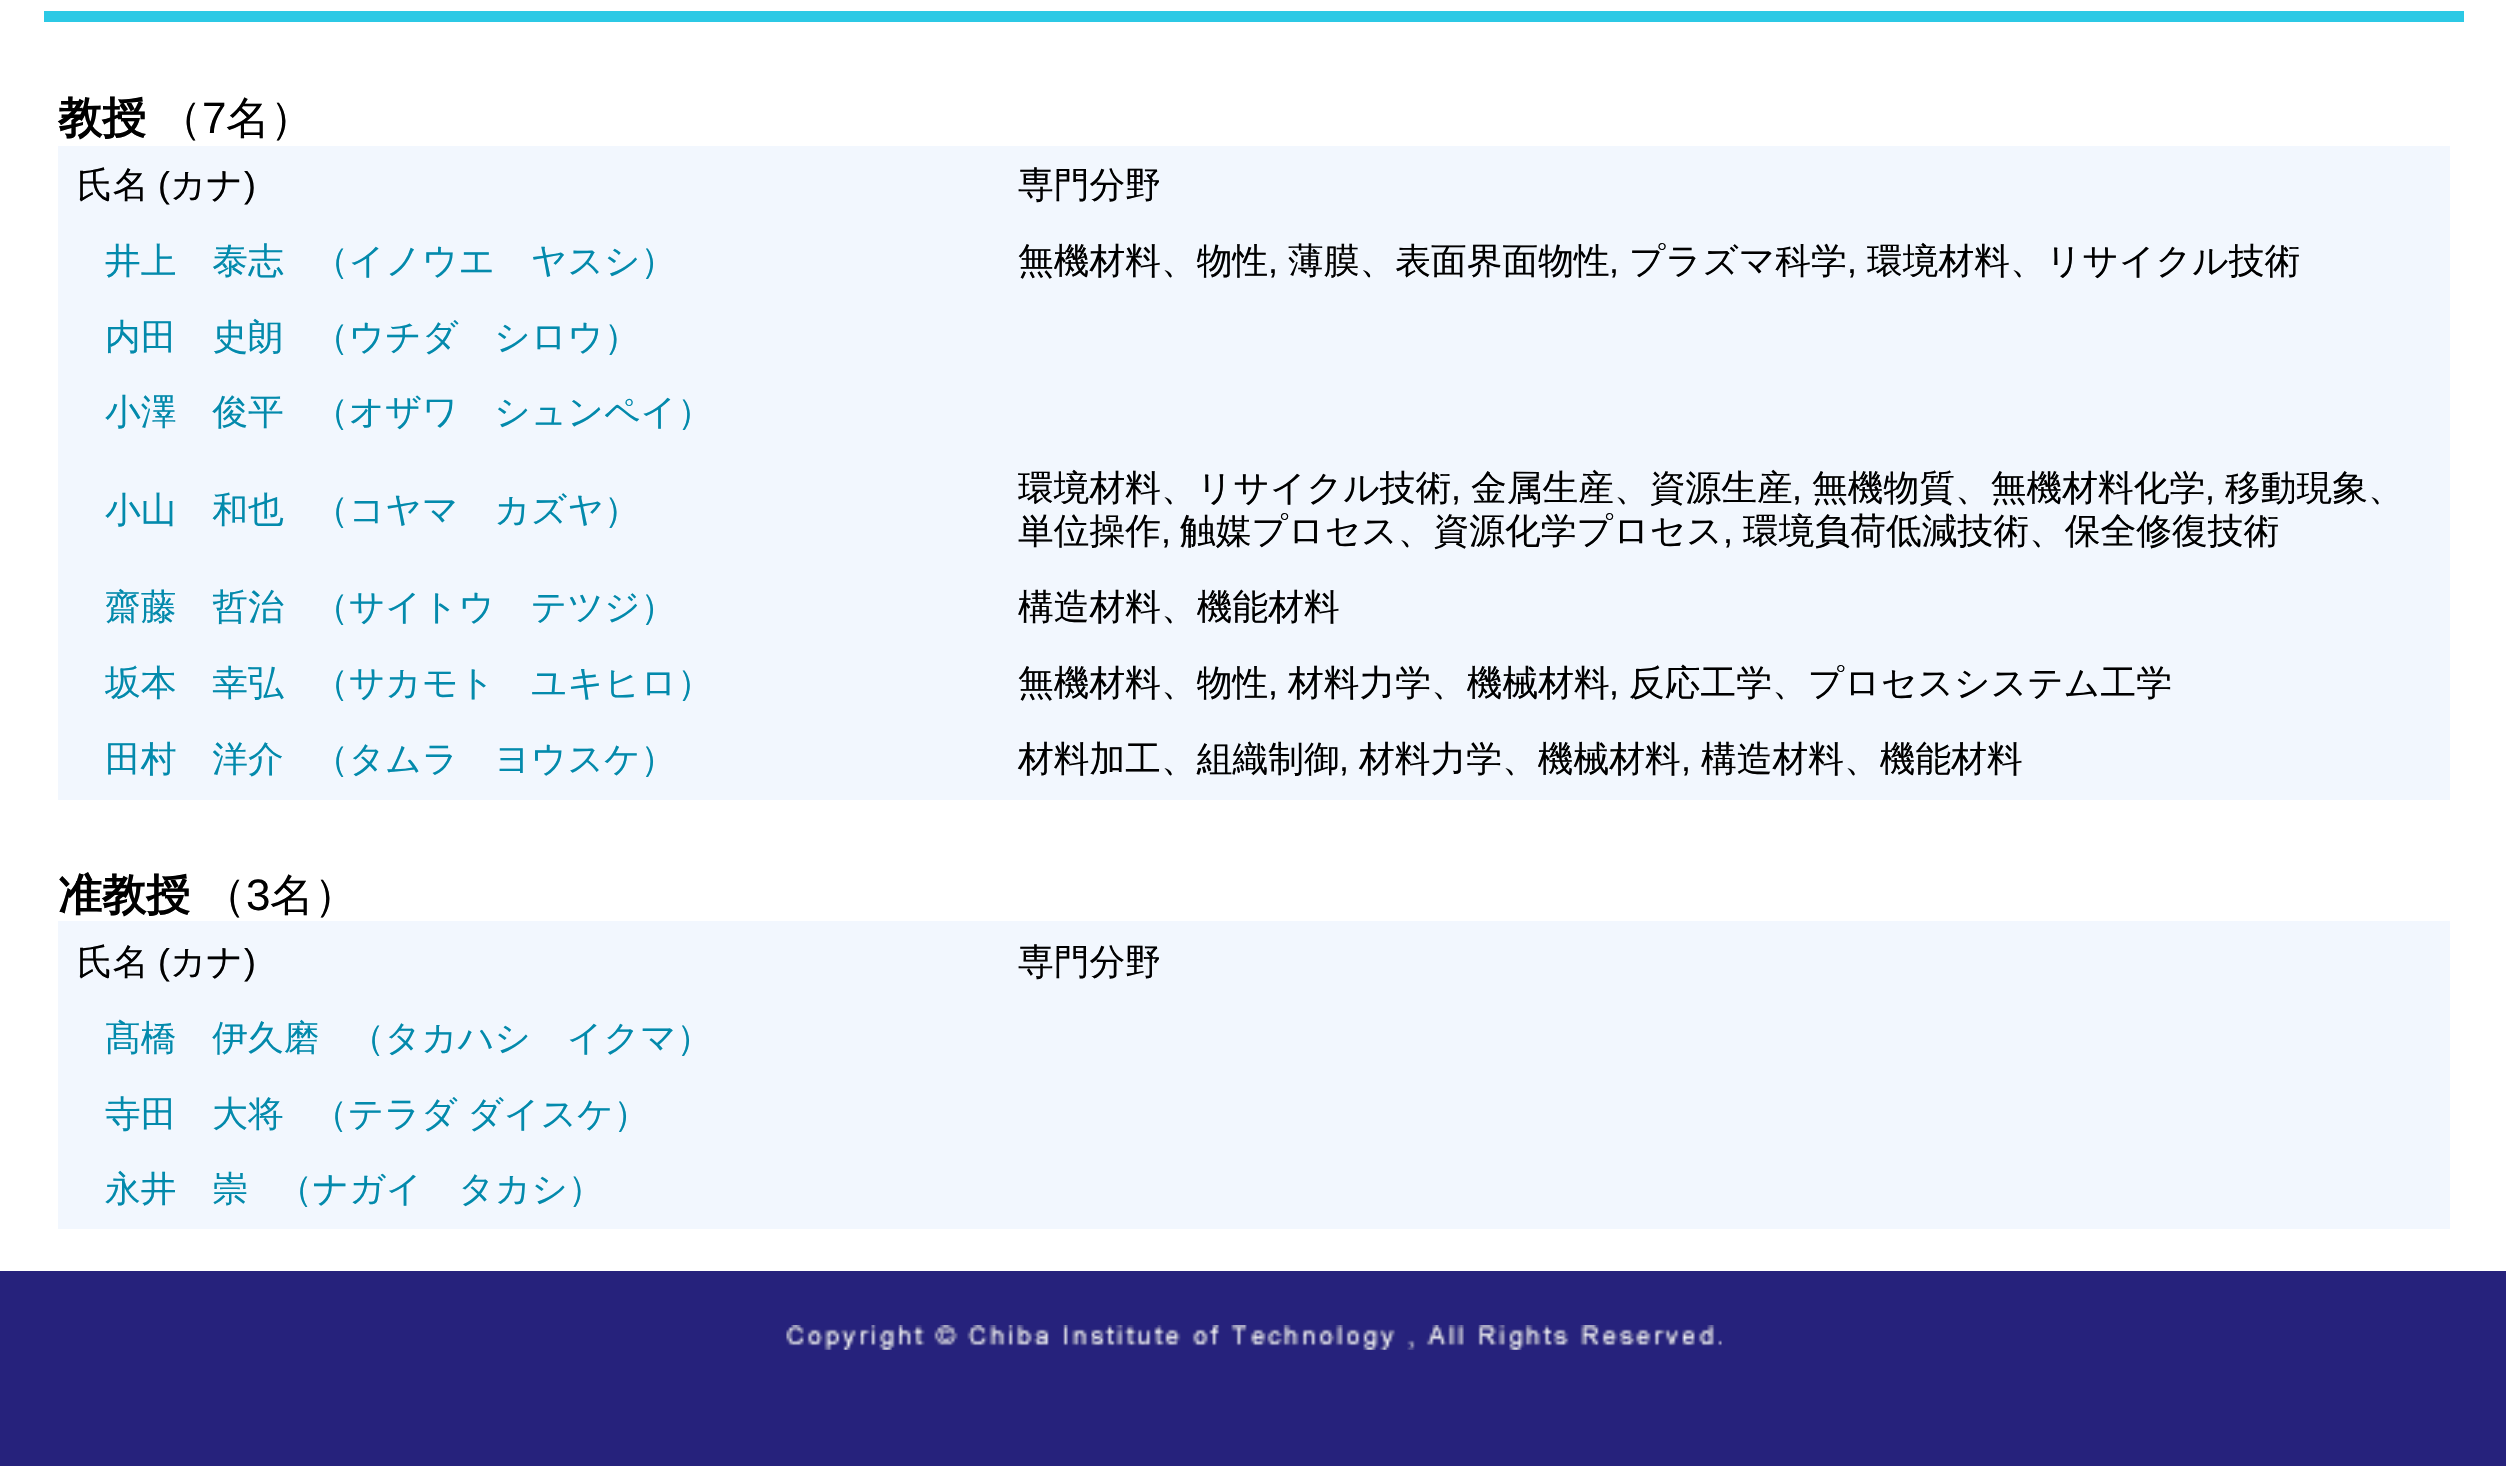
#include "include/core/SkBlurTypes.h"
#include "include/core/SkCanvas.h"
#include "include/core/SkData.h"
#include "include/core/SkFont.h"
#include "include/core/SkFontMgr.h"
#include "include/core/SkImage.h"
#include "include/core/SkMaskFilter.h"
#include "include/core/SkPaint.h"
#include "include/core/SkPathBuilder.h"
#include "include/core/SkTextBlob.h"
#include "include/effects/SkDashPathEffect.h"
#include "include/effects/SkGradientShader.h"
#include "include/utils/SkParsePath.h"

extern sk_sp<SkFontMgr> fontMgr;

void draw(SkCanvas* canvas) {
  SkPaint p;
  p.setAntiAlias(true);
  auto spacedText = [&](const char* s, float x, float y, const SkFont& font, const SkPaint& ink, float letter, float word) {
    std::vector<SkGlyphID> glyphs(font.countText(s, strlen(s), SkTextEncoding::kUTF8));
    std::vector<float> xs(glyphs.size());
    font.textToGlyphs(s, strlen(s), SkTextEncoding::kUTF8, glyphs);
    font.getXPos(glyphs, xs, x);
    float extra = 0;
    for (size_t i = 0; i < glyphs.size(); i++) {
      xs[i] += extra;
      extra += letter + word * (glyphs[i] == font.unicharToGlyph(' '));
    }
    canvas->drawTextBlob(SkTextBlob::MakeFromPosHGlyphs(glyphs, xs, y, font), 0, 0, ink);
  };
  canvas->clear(SK_ColorWHITE);
  p.setColor(SkColorSetRGB(44, 201, 229));
  canvas->drawRect(SkRect::MakeLTRB(44, 11, 2464, 22), p);
  p.setColor(SkColorSetRGB(242, 247, 254));
  canvas->drawRect(SkRect::MakeLTRB(58, 146, 2450, 800), p);
  canvas->drawRect(SkRect::MakeLTRB(58, 921, 2450, 1229), p);
  p.setColor(SkColorSetRGB(38, 34, 124));
  canvas->drawRect(SkRect::MakeLTRB(0, 1271, 2506, 1466), p);
  canvas->drawImageRect(SkImages::DeferredFromEncodedData(SkData::MakeFromFileName("images/1.png")), SkRect::MakeLTRB(786, 1325, 1722, 1350), SkSamplingOptions());
  SkFont font1(fontMgr->matchFamilyStyle("WenQuanYi Zen Hei", SkFontStyle::Bold()), 44);
  font1.setSubpixel(true);
  p.setColor(SK_ColorBLACK);
  canvas->drawString("教授", 58, 133, font1, p);
  SkFont font2(fontMgr->matchFamilyStyle("WenQuanYi Zen Hei", SkFontStyle(500, SkFontStyle::kNormal_Width, SkFontStyle::kUpright_Slant)), 44);
  font2.setSubpixel(true);
  canvas->drawString("（", 158, 133, font2, p);
  SkFont font3(fontMgr->matchFamilyStyle("Liberation Sans", SkFontStyle::Normal()), 44);
  font3.setSubpixel(true);
  canvas->drawString("7", 202, 133, font3, p);
  canvas->drawString("名）", 226, 133, font2, p);
  SkFont font4(fontMgr->matchFamilyStyle("WenQuanYi Zen Hei", SkFontStyle(500, SkFontStyle::kNormal_Width, SkFontStyle::kUpright_Slant)), 35.75f);
  font4.setSubpixel(true);
  canvas->drawString("氏名", 77, 197, font4, p);
  SkFont font5(fontMgr->matchFamilyStyle("Liberation Sans", SkFontStyle::Normal()), 35.75f);
  font5.setSubpixel(true);
  canvas->drawString("(", 158, 197, font5, p);
  canvas->drawString("カナ", 170, 197, font4, p);
  canvas->drawString(")", 244, 197, font5, p);
  canvas->drawString("専門分野", 1018, 197, font4, p);
  p.setColor(SkColorSetRGB(3, 138, 172));
  canvas->drawString("井上　泰志", 105, 273, font4, p);
  canvas->drawString("（イノウエ　ヤスシ）", 313, 273, font4, p);
  p.setColor(SK_ColorBLACK);
  canvas->drawString("無機材料、物性", 1018, 273, font4, p);
  canvas->drawString(",", 1268, 273, font5, p);
  canvas->drawString("薄膜、表面界面物性", 1288, 273, font4, p);
  canvas->drawString(",", 1609, 273, font5, p);
  canvas->drawString("プラズマ科学", 1629, 273, font4, p);
  canvas->drawString(",", 1847, 273, font5, p);
  canvas->drawString("環境材料、リサイクル技術", 1867, 273, font4, p);
  p.setColor(SkColorSetRGB(3, 138, 172));
  canvas->drawString("内田　史朗", 105, 349, font4, p);
  canvas->drawString("（ウチダ　シロウ）", 313, 349, font4, p);
  canvas->drawString("小澤　俊平", 105, 424, font4, p);
  canvas->drawString("（オザワ　シュンペイ）", 313, 424, font4, p);
  canvas->drawString("小山　和也", 105, 522, font4, p);
  canvas->drawString("（コヤマ　カズヤ）", 313, 522, font4, p);
  p.setColor(SK_ColorBLACK);
  canvas->drawString("環境材料、リサイクル技術", 1018, 500, font4, p);
  canvas->drawString(",", 1451, 500, font5, p);
  canvas->drawString("金属生産、資源生産", 1471, 500, font4, p);
  canvas->drawString(",", 1792, 500, font5, p);
  canvas->drawString("無機物質、無機材料化学", 1812, 500, font4, p);
  canvas->drawString(",", 2205, 500, font5, p);
  canvas->drawString("移動現象、", 2225, 500, font4, p);
  canvas->drawString("単位操作", 1018, 543, font4, p);
  canvas->drawString(",", 1161, 543, font5, p);
  canvas->drawString("触媒プロセス、資源化学プロセス", 1180, 543, font4, p);
  canvas->drawString(",", 1723, 543, font5, p);
  canvas->drawString("環境負荷低減技術、保全修復技術", 1743, 543, font4, p);
  p.setColor(SkColorSetRGB(3, 138, 172));
  canvas->drawString("齋藤　哲治", 105, 619, font4, p);
  canvas->drawString("（サイトウ　テツジ）", 313, 619, font4, p);
  p.setColor(SK_ColorBLACK);
  canvas->drawString("構造材料、機能材料", 1018, 619, font4, p);
  p.setColor(SkColorSetRGB(3, 138, 172));
  canvas->drawString("坂本　幸弘", 105, 695, font4, p);
  canvas->drawString("（サカモト　ユキヒロ）", 313, 695, font4, p);
  p.setColor(SK_ColorBLACK);
  canvas->drawString("無機材料、物性", 1018, 695, font4, p);
  canvas->drawString(",", 1268, 695, font5, p);
  canvas->drawString("材料力学、機械材料", 1288, 695, font4, p);
  canvas->drawString(",", 1609, 695, font5, p);
  canvas->drawString("反応工学、プロセスシステム工学", 1629, 695, font4, p);
  p.setColor(SkColorSetRGB(3, 138, 172));
  canvas->drawString("田村　洋介", 105, 771, font4, p);
  canvas->drawString("（タムラ　ヨウスケ）", 313, 771, font4, p);
  p.setColor(SK_ColorBLACK);
  canvas->drawString("材料加工、組織制御", 1018, 771, font4, p);
  canvas->drawString(",", 1339, 771, font5, p);
  canvas->drawString("材料力学、機械材料", 1359, 771, font4, p);
  canvas->drawString(",", 1681, 771, font5, p);
  canvas->drawString("構造材料、機能材料", 1701, 771, font4, p);
  canvas->drawString("准教授", 58, 910, font1, p);
  canvas->drawString("（", 202, 910, font2, p);
  canvas->drawString("3", 246, 910, font3, p);
  canvas->drawString("名）", 270, 910, font2, p);
  canvas->drawString("氏名", 77, 974, font4, p);
  canvas->drawString("(", 158, 974, font5, p);
  canvas->drawString("カナ", 170, 974, font4, p);
  canvas->drawString(")", 244, 974, font5, p);
  canvas->drawString("専門分野", 1018, 974, font4, p);
  p.setColor(SkColorSetRGB(3, 138, 172));
  canvas->drawString("髙橋　伊久磨", 105, 1050, font4, p);
  canvas->drawString("（タカハシ　イクマ）", 349, 1050, font4, p);
  canvas->drawString("寺田　大将", 105, 1126, font4, p);
  spacedText("（テラダ ダイスケ）", 312, 1126, font4, p, 0, -1);
  canvas->drawString("永井　崇", 105, 1201, font4, p);
  canvas->drawString("（ナガイ　タカシ）", 277, 1201, font4, p);
}
